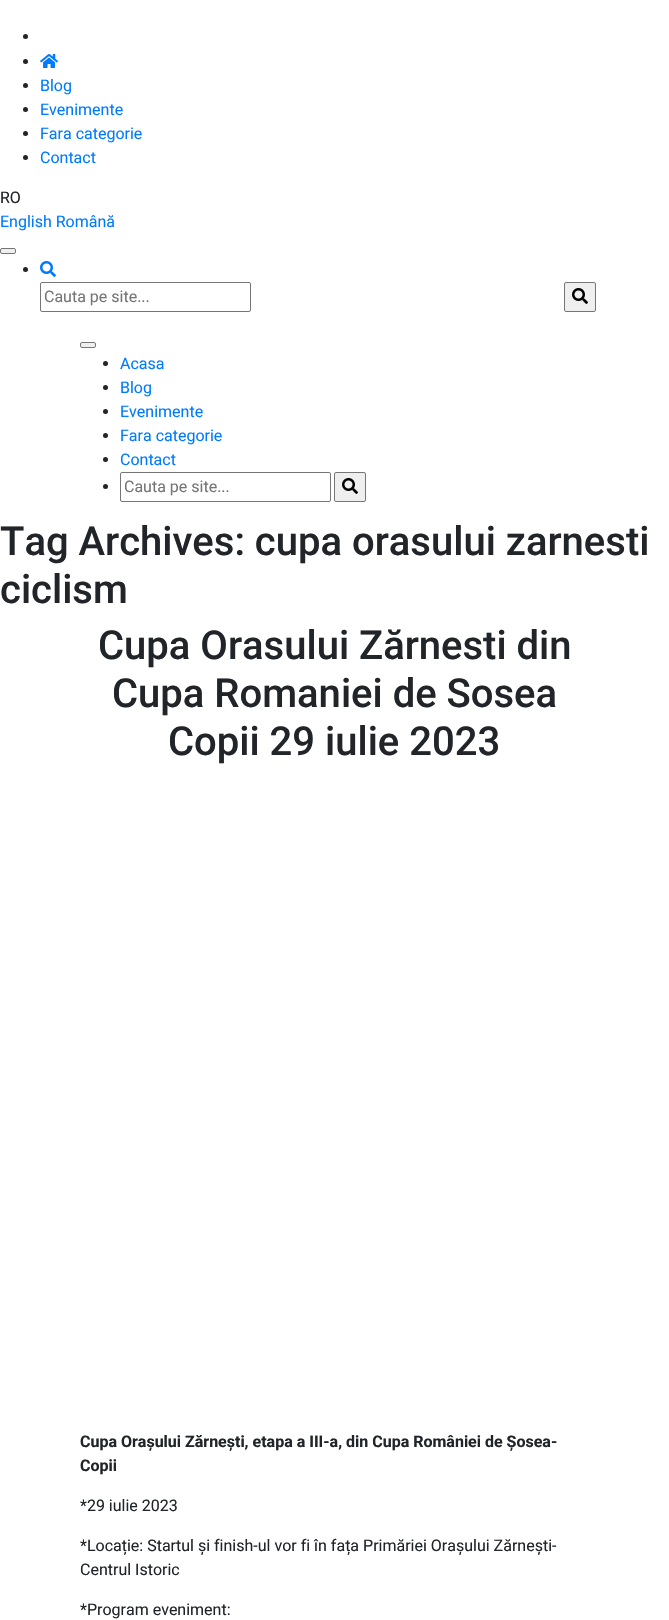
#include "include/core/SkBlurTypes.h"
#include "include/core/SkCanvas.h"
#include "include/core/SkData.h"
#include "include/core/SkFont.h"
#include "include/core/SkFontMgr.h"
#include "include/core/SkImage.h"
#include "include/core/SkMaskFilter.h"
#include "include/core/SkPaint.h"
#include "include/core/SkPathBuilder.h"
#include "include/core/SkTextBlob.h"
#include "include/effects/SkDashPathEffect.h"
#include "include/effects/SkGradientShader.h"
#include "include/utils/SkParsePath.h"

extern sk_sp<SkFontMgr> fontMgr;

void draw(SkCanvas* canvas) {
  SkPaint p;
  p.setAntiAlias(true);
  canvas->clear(SK_ColorWHITE);
  p.setColor(SkColorSetRGB(33, 37, 41));
  canvas->drawCircle(25.5f, 36.5f, 2.5f, p);
  canvas->drawCircle(25.5f, 61.5f, 2.5f, p);
  canvas->drawImageRect(SkImages::DeferredFromEncodedData(SkData::MakeFromFileName("images/1.png")), SkRect::MakeLTRB(40, 54, 58, 68), SkSamplingOptions());
  canvas->drawCircle(25.5f, 85.5f, 2.5f, p);
  canvas->drawCircle(25.5f, 109.5f, 2.5f, p);
  canvas->drawCircle(25.5f, 133.5f, 2.5f, p);
  canvas->drawCircle(25.5f, 157.5f, 2.5f, p);
  p.setColor(SkColorSetRGB(239, 239, 239));
  canvas->drawRoundRect(SkRect::MakeLTRB(0.5f, 248.5f, 15.5f, 253.5f), 1.5f, 1.5f, p);
  p.setStyle(SkPaint::kStroke_Style);
  p.setStrokeWidth(1);
  p.setColor(SkColorSetRGB(118, 118, 118));
  canvas->drawRoundRect(SkRect::MakeLTRB(0.5f, 248.5f, 15.5f, 253.5f), 1.5f, 1.5f, p);
  p.setStyle(SkPaint::kFill_Style);
  p.setColor(SkColorSetRGB(33, 37, 41));
  canvas->drawCircle(25.5f, 269.5f, 2.5f, p);
  canvas->drawImageRect(SkImages::DeferredFromEncodedData(SkData::MakeFromFileName("images/2.png")), SkRect::MakeLTRB(40, 261, 56, 277), SkSamplingOptions());
  p.setStyle(SkPaint::kStroke_Style);
  p.setColor(SkColorSetRGB(118, 118, 118));
  canvas->drawRoundRect(SkRect::MakeLTRB(40.5f, 282.5f, 250.5f, 311.5f), 1.5f, 1.5f, p);
  p.setStyle(SkPaint::kFill_Style);
  p.setColor(SkColorSetRGB(239, 239, 239));
  canvas->drawRoundRect(SkRect::MakeLTRB(564.5f, 282.5f, 595.5f, 311.5f), 1.5f, 1.5f, p);
  p.setStyle(SkPaint::kStroke_Style);
  p.setColor(SkColorSetRGB(118, 118, 118));
  canvas->drawRoundRect(SkRect::MakeLTRB(564.5f, 282.5f, 595.5f, 311.5f), 1.5f, 1.5f, p);
  canvas->drawImageRect(SkImages::DeferredFromEncodedData(SkData::MakeFromFileName("images/3.png")), SkRect::MakeLTRB(572, 288, 588, 304), SkSamplingOptions());
  p.setStyle(SkPaint::kFill_Style);
  p.setColor(SkColorSetRGB(239, 239, 239));
  canvas->drawRoundRect(SkRect::MakeLTRB(80.5f, 342.5f, 95.5f, 347.5f), 1.5f, 1.5f, p);
  p.setStyle(SkPaint::kStroke_Style);
  p.setColor(SkColorSetRGB(118, 118, 118));
  canvas->drawRoundRect(SkRect::MakeLTRB(80.5f, 342.5f, 95.5f, 347.5f), 1.5f, 1.5f, p);
  p.setStyle(SkPaint::kFill_Style);
  p.setColor(SkColorSetRGB(33, 37, 41));
  canvas->drawCircle(105.5f, 363.5f, 2.5f, p);
  canvas->drawCircle(105.5f, 387.5f, 2.5f, p);
  canvas->drawCircle(105.5f, 411.5f, 2.5f, p);
  canvas->drawCircle(105.5f, 435.5f, 2.5f, p);
  canvas->drawCircle(105.5f, 459.5f, 2.5f, p);
  canvas->drawCircle(105.5f, 486.5f, 2.5f, p);
  p.setStyle(SkPaint::kStroke_Style);
  p.setColor(SkColorSetRGB(118, 118, 118));
  canvas->drawRoundRect(SkRect::MakeLTRB(120.5f, 472.5f, 330.5f, 501.5f), 1.5f, 1.5f, p);
  p.setStyle(SkPaint::kFill_Style);
  p.setColor(SkColorSetRGB(239, 239, 239));
  canvas->drawRoundRect(SkRect::MakeLTRB(334.5f, 472.5f, 365.5f, 501.5f), 1.5f, 1.5f, p);
  p.setStyle(SkPaint::kStroke_Style);
  p.setColor(SkColorSetRGB(118, 118, 118));
  canvas->drawRoundRect(SkRect::MakeLTRB(334.5f, 472.5f, 365.5f, 501.5f), 1.5f, 1.5f, p);
  canvas->drawImageRect(SkImages::DeferredFromEncodedData(SkData::MakeFromFileName("images/3.png")), SkRect::MakeLTRB(342, 478, 358, 494), SkSamplingOptions());
  SkFont font1(fontMgr->matchFamilyStyle("Roboto", SkFontStyle::Normal()), 16);
  font1.setSubpixel(true);
  p.setStyle(SkPaint::kFill_Style);
  p.setColor(SkColorSetRGB(0, 123, 255));
  canvas->drawString("Blog", 40, 91, font1, p);
  canvas->drawString("Evenimente", 40, 115, font1, p);
  canvas->drawString("Fara categorie", 40, 139, font1, p);
  canvas->drawString("Contact", 40, 163, font1, p);
  p.setColor(SkColorSetRGB(33, 37, 41));
  canvas->drawString("RO", 0, 203, font1, p);
  p.setColor(SkColorSetRGB(0, 123, 255));
  canvas->drawString("English Română", 0, 227, font1, p);
  p.setColor(SkColorSetRGB(117, 117, 117));
  canvas->drawString("Cauta pe site...", 44, 302, font1, p);
  p.setColor(SkColorSetRGB(0, 123, 255));
  canvas->drawString("Acasa", 120, 369, font1, p);
  canvas->drawString("Blog", 120, 393, font1, p);
  canvas->drawString("Evenimente", 120, 417, font1, p);
  canvas->drawString("Fara categorie", 120, 441, font1, p);
  canvas->drawString("Contact", 120, 465, font1, p);
  p.setColor(SkColorSetRGB(117, 117, 117));
  canvas->drawString("Cauta pe site...", 124, 492, font1, p);
  SkFont font2(fontMgr->matchFamilyStyle("Roboto", SkFontStyle(500, SkFontStyle::kNormal_Width, SkFontStyle::kUpright_Slant)), 40);
  font2.setSubpixel(true);
  p.setColor(SkColorSetRGB(33, 37, 41));
  canvas->drawString("Tag Archives: cupa orasului zarnesti", 0, 555, font2, p);
  canvas->drawString("ciclism", 0, 603, font2, p);
  canvas->drawString("Cupa Orasului Zărnesti din", 98, 659, font2, p);
  canvas->drawString("Cupa Romaniei de Sosea", 112, 707, font2, p);
  canvas->drawString("Copii 29 iulie 2023", 168, 755, font2, p);
  SkFont font3(fontMgr->matchFamilyStyle("Roboto", SkFontStyle::Bold()), 16);
  font3.setSubpixel(true);
  canvas->drawString("Cupa Orașului Zărnești, etapa a III-a, din Cupa României de Șosea-", 80, 1447, font3, p);
  canvas->drawString("Copii", 80, 1471, font3, p);
  canvas->drawString("*29 iulie 2023", 80, 1511, font1, p);
  canvas->drawString("*Locație: Startul și finish-ul vor fi în fața Primăriei Orașului Zărnești-", 80, 1551, font1, p);
  canvas->drawString("Centrul Istoric", 80, 1575, font1, p);
  canvas->drawString("*Program eveniment:", 80, 1615, font1, p);
}
